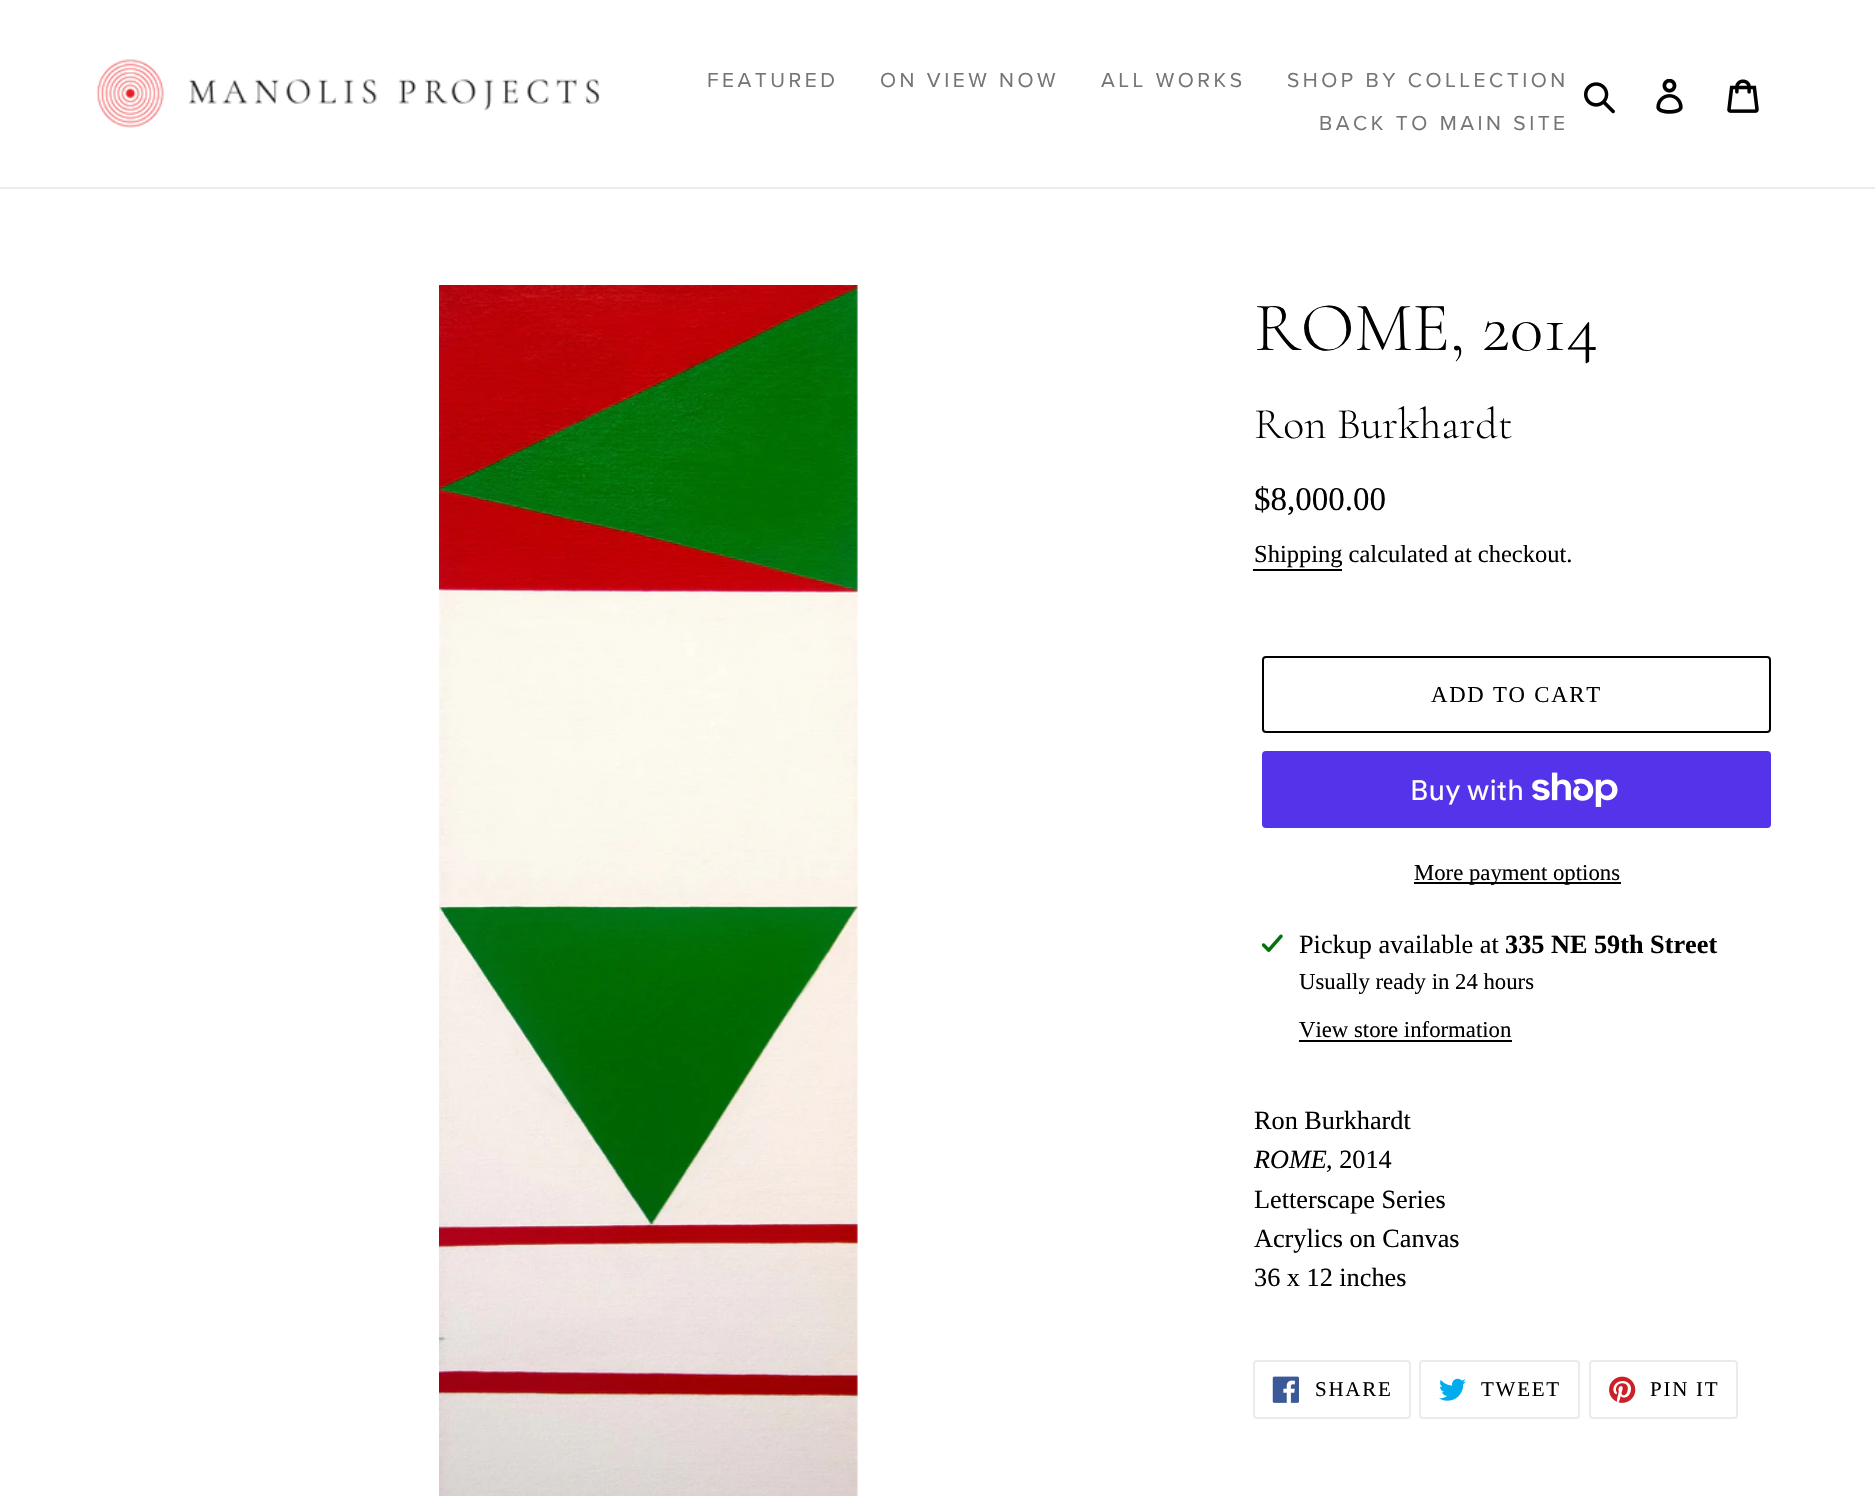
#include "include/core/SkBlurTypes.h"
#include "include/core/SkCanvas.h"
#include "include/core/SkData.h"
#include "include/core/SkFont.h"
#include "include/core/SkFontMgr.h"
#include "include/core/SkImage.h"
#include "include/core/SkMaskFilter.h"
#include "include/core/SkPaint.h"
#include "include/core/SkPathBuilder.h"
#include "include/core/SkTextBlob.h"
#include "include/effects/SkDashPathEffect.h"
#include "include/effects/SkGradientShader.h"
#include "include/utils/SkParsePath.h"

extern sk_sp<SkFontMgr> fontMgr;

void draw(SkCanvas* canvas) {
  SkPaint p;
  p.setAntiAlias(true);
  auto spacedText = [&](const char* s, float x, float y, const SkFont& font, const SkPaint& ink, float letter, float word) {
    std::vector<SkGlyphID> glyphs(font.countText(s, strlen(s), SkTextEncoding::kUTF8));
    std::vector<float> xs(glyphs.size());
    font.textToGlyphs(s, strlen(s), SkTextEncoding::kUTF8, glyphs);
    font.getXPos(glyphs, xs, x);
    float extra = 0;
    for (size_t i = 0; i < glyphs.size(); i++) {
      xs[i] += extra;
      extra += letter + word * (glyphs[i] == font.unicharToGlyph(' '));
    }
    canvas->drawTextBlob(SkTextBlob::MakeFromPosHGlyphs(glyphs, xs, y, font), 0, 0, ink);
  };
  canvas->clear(SK_ColorWHITE);
  p.setColor(SkColorSetRGB(235, 235, 235));
  canvas->drawRect(SkRect::MakeLTRB(0, 187, 1875, 189), p);
  canvas->drawImageRect(SkImages::DeferredFromEncodedData(SkData::MakeFromFileName("images/1.png")), SkRect::MakeLTRB(96, 59, 600, 128), SkSamplingOptions());
  canvas->drawImageRect(SkImages::DeferredFromEncodedData(SkData::MakeFromFileName("images/2.png")), SkRect::MakeLTRB(1584, 82, 1615, 114), SkSamplingOptions());
  canvas->drawImageRect(SkImages::DeferredFromEncodedData(SkData::MakeFromFileName("images/3.png")), SkRect::MakeLTRB(1656, 79, 1683, 114), SkSamplingOptions());
  canvas->drawImageRect(SkImages::DeferredFromEncodedData(SkData::MakeFromFileName("images/4.png")), SkRect::MakeLTRB(1727, 79, 1759, 113), SkSamplingOptions());
  canvas->drawImageRect(SkImages::DeferredFromEncodedData(SkData::MakeFromFileName("images/5.png")), SkRect::MakeLTRB(439, 285, 858, 1496), SkSamplingOptions());
  p.setColor(SK_ColorBLACK);
  canvas->drawRect(SkRect::MakeLTRB(1253, 569, 1342, 571), p);
  p.setStyle(SkPaint::kStroke_Style);
  p.setStrokeWidth(2);
  canvas->drawRoundRect(SkRect::MakeLTRB(1263, 657, 1770, 732), 3, 3, p);
  p.setStyle(SkPaint::kFill_Style);
  p.setColor(SkColorSetRGB(84, 51, 235));
  canvas->drawRoundRect(SkRect::MakeLTRB(1262, 751, 1771, 828), 4, 4, p);
  canvas->drawImageRect(SkImages::DeferredFromEncodedData(SkData::MakeFromFileName("images/6.png")), SkRect::MakeLTRB(1532, 772, 1618, 807), SkSamplingOptions());
  p.setColor(SK_ColorBLACK);
  canvas->drawRect(SkRect::MakeLTRB(1414, 882, 1621, 884), p);
  canvas->drawImageRect(SkImages::DeferredFromEncodedData(SkData::MakeFromFileName("images/7.png")), SkRect::MakeLTRB(1262, 934, 1283, 952), SkSamplingOptions());
  canvas->drawRect(SkRect::MakeLTRB(1299, 1040, 1512, 1042), p);
  p.setStyle(SkPaint::kStroke_Style);
  p.setColor(SkColorSetRGB(235, 235, 235));
  canvas->drawRoundRect(SkRect::MakeLTRB(1254, 1361, 1410, 1418), 3, 3, p);
  canvas->drawImageRect(SkImages::DeferredFromEncodedData(SkData::MakeFromFileName("images/8.png")), SkRect::MakeLTRB(1272, 1376, 1299, 1403), SkSamplingOptions());
  canvas->drawRoundRect(SkRect::MakeLTRB(1420, 1361, 1579, 1418), 3, 3, p);
  canvas->drawImageRect(SkImages::DeferredFromEncodedData(SkData::MakeFromFileName("images/9.png")), SkRect::MakeLTRB(1439, 1378, 1466, 1401), SkSamplingOptions());
  canvas->drawRoundRect(SkRect::MakeLTRB(1590, 1361, 1737, 1418), 3, 3, p);
  canvas->drawImageRect(SkImages::DeferredFromEncodedData(SkData::MakeFromFileName("images/10.png")), SkRect::MakeLTRB(1609, 1376, 1636, 1403), SkSamplingOptions());
  SkFont font1(fontMgr->matchFamilyStyle("Proxima Nova", SkFontStyle::Normal()), 21);
  font1.setSubpixel(true);
  p.setStyle(SkPaint::kFill_Style);
  p.setColor(SkColorSetRGB(117, 117, 117));
  spacedText("FEATURED", 707, 87, font1, p, 3.5f, 0);
  spacedText("ON VIEW NOW", 880, 87, font1, p, 3.5f, 0);
  spacedText("ALL WORKS", 1101, 87, font1, p, 3.5f, 0);
  spacedText("SHOP BY COLLECTION", 1287, 87, font1, p, 3.5f, 0);
  spacedText("BACK TO MAIN SITE", 1319, 130, font1, p, 3.5f, 0);
  SkFont font2(fontMgr->matchFamilyStyle("Cormorant Garamond", SkFontStyle(300, SkFontStyle::kNormal_Width, SkFontStyle::kUpright_Slant)), 70);
  font2.setSubpixel(true);
  p.setColor(SK_ColorBLACK);
  canvas->drawString("ROME, 2014", 1254, 350, font2, p);
  SkFont font3(fontMgr->matchFamilyStyle("Cormorant Garamond", SkFontStyle(300, SkFontStyle::kNormal_Width, SkFontStyle::kUpright_Slant)), 43.75f);
  font3.setSubpixel(true);
  canvas->drawString("Ron Burkhardt", 1254, 438, font3, p);
  SkFont font4(fontMgr->matchFamilyStyle("Liberation Serif", SkFontStyle::Normal()), 33);
  font4.setSubpixel(true);
  canvas->drawString("$8,000.00", 1254, 510, font4, p);
  SkFont font5(fontMgr->matchFamilyStyle("Liberation Serif", SkFontStyle::Normal()), 24.5f);
  font5.setSubpixel(true);
  canvas->drawString("Shipping calculated at checkout.", 1254, 562, font5, p);
  SkFont font6(fontMgr->matchFamilyStyle("Liberation Serif", SkFontStyle::Normal()), 22.75f);
  font6.setSubpixel(true);
  spacedText("ADD TO CART", 1431, 702, font6, p, 1.75f, 0);
  SkFont font7(fontMgr->matchFamilyStyle("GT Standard", SkFontStyle::Normal()), 28);
  font7.setSubpixel(true);
  p.setColor(SK_ColorWHITE);
  canvas->drawString("Buy with", 1410, 800, font7, p);
  p.setColor(SK_ColorBLACK);
  canvas->drawString("More payment options", 1414, 880, font6, p);
  SkFont font8(fontMgr->matchFamilyStyle("Liberation Serif", SkFontStyle::Normal()), 26.25f);
  font8.setSubpixel(true);
  canvas->drawString("Pickup available at", 1299, 953, font8, p);
  SkFont font9(fontMgr->matchFamilyStyle("Liberation Serif", SkFontStyle::Bold()), 26.25f);
  font9.setSubpixel(true);
  canvas->drawString("335 NE 59th Street", 1505, 953, font9, p);
  canvas->drawString("Usually ready in 24 hours", 1299, 989, font6, p);
  canvas->drawString("View store information", 1299, 1037, font6, p);
  canvas->drawString("Ron Burkhardt", 1254, 1129, font8, p);
  SkFont font10(fontMgr->matchFamilyStyle("Liberation Serif", SkFontStyle::Italic()), 26.25f);
  font10.setSubpixel(true);
  canvas->drawString("ROME", 1254, 1168, font10, p);
  canvas->drawString(", 2014", 1326, 1168, font8, p);
  canvas->drawString("Letterscape Series", 1254, 1208, font8, p);
  canvas->drawString("Acrylics on Canvas", 1254, 1247, font8, p);
  canvas->drawString("36 x 12 inches", 1254, 1286, font8, p);
  SkFont font11(fontMgr->matchFamilyStyle("Liberation Serif", SkFontStyle::Normal()), 21);
  font11.setSubpixel(true);
  spacedText("SHARE", 1315, 1396, font11, p, 1.75f, 0);
  spacedText("TWEET", 1481, 1396, font11, p, 1.75f, 0);
  spacedText("PIN IT", 1650, 1396, font11, p, 1.75f, 0);
}
